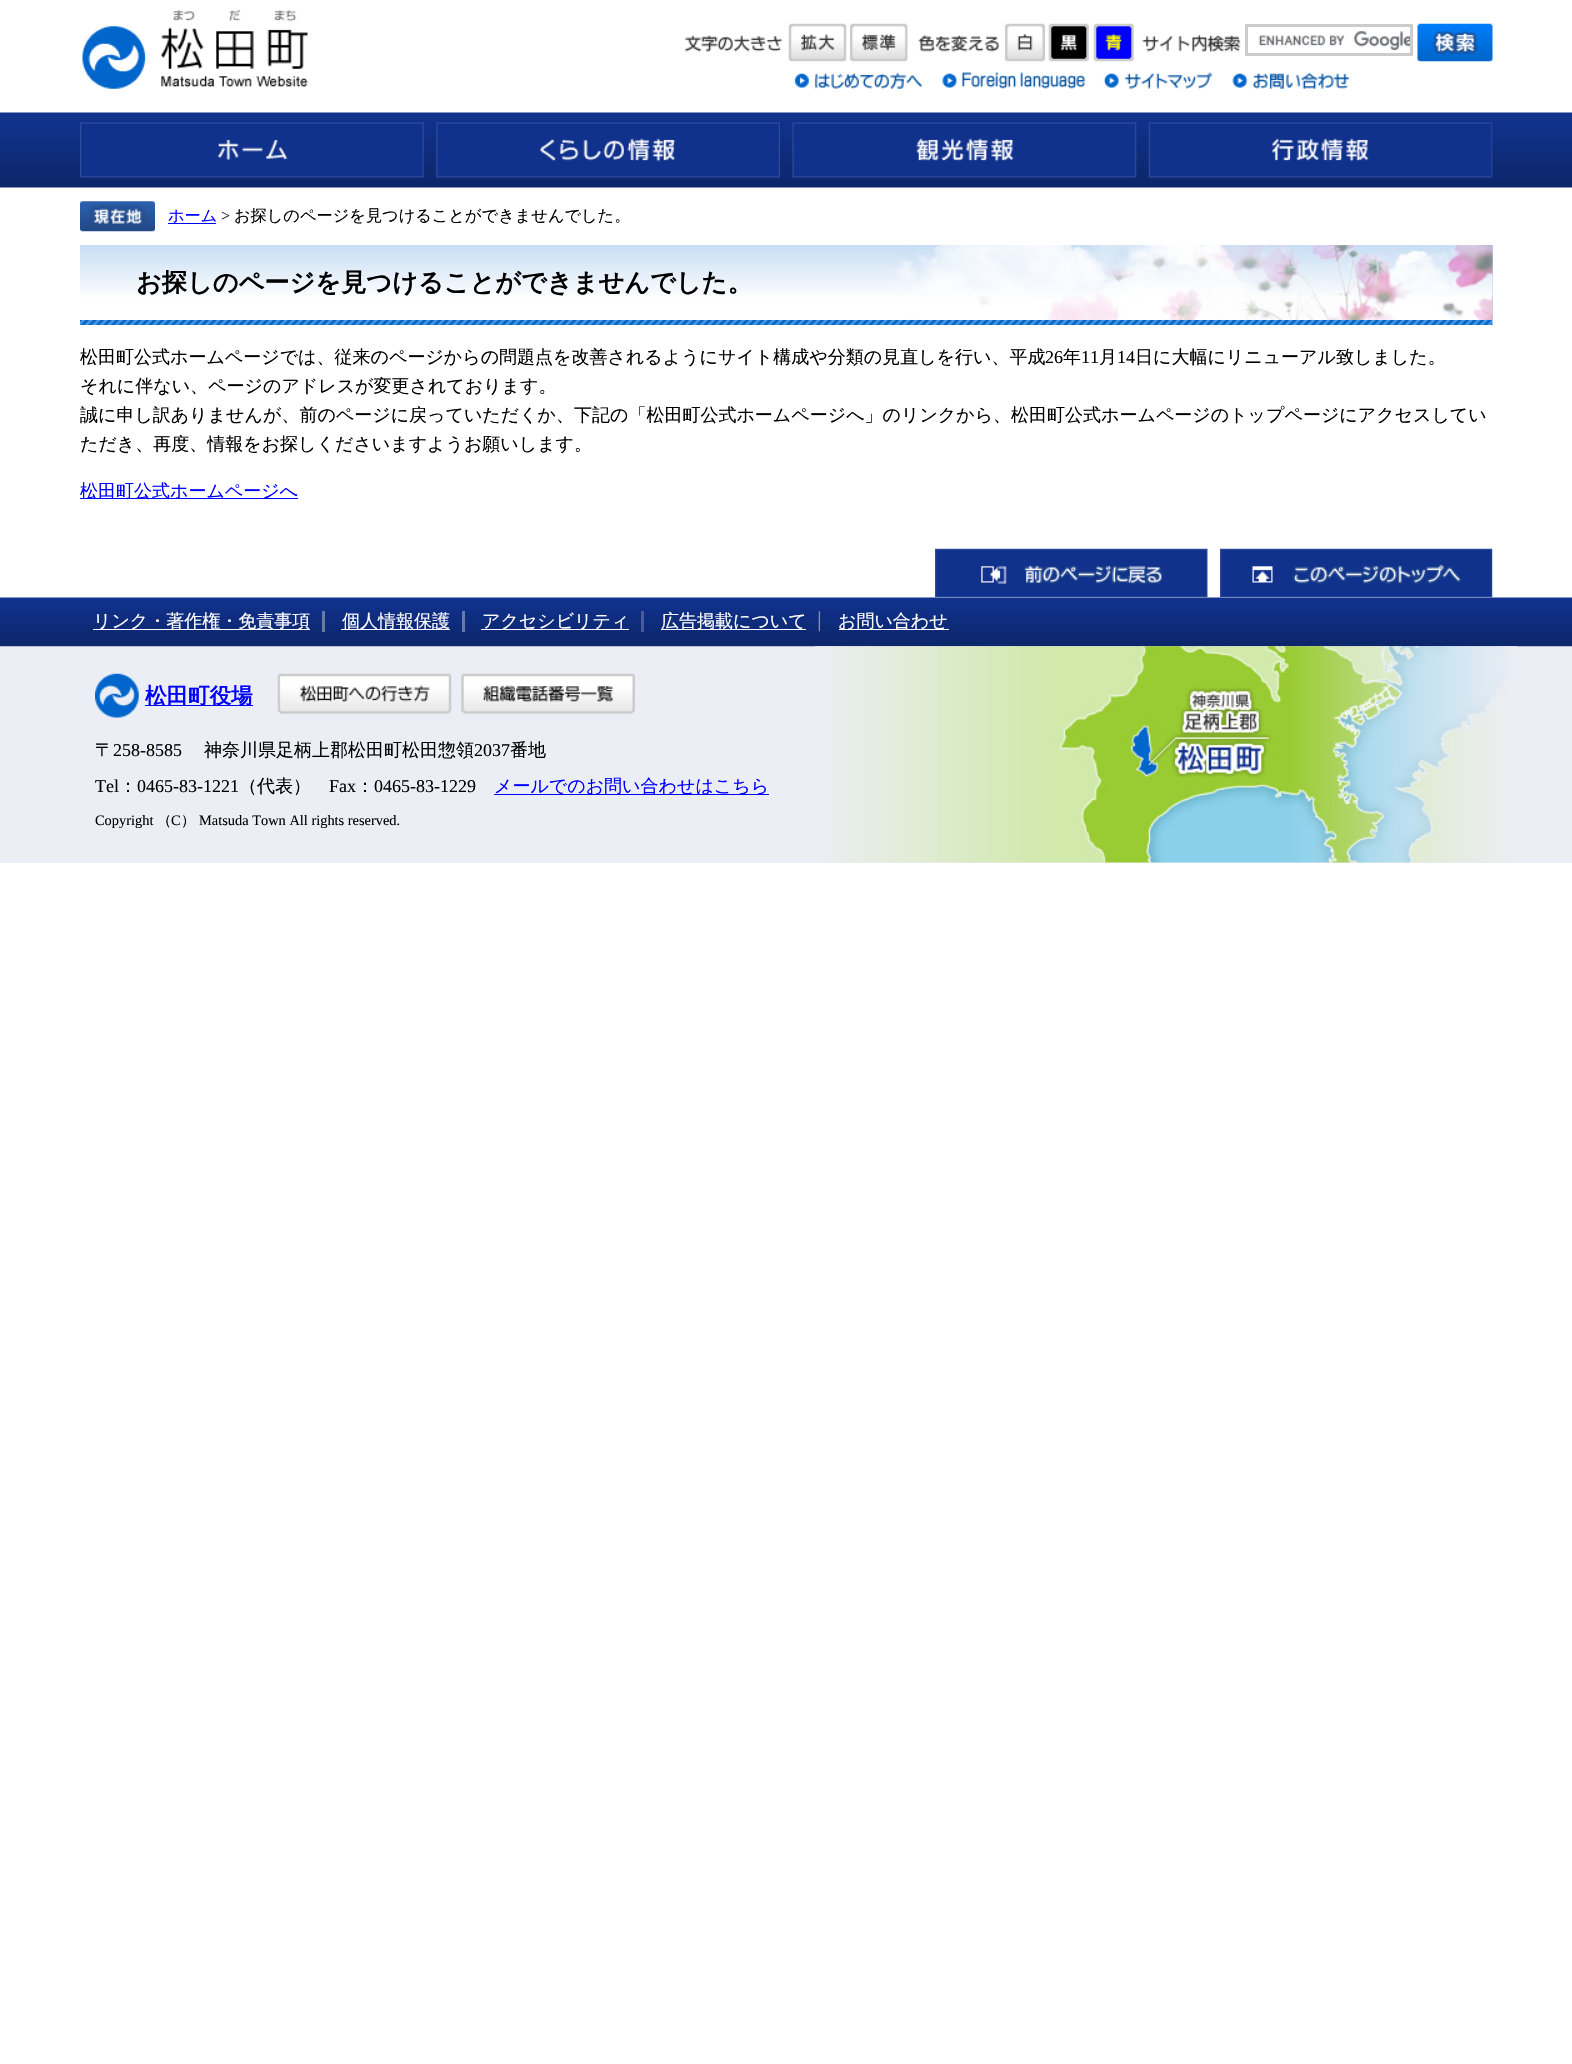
#include "include/core/SkBlurTypes.h"
#include "include/core/SkCanvas.h"
#include "include/core/SkData.h"
#include "include/core/SkFont.h"
#include "include/core/SkFontMgr.h"
#include "include/core/SkImage.h"
#include "include/core/SkMaskFilter.h"
#include "include/core/SkPaint.h"
#include "include/core/SkPathBuilder.h"
#include "include/core/SkTextBlob.h"
#include "include/effects/SkDashPathEffect.h"
#include "include/effects/SkGradientShader.h"
#include "include/utils/SkParsePath.h"

extern sk_sp<SkFontMgr> fontMgr;

void draw(SkCanvas* canvas) {
  SkPaint p;
  p.setAntiAlias(true);
  canvas->clear(SK_ColorWHITE);
  canvas->drawImageRect(SkImages::DeferredFromEncodedData(SkData::MakeFromFileName("images/1.png")), SkRect::MakeLTRB(82, 9, 308, 89), SkSamplingOptions());
  canvas->drawImageRect(SkImages::DeferredFromEncodedData(SkData::MakeFromFileName("images/2.png")), SkRect::MakeLTRB(684, 35, 783, 52), SkSamplingOptions());
  canvas->drawImageRect(SkImages::DeferredFromEncodedData(SkData::MakeFromFileName("images/3.png")), SkRect::MakeLTRB(788, 23, 847, 62), SkSamplingOptions());
  canvas->drawImageRect(SkImages::DeferredFromEncodedData(SkData::MakeFromFileName("images/4.png")), SkRect::MakeLTRB(850, 23, 908, 62), SkSamplingOptions());
  canvas->drawImageRect(SkImages::DeferredFromEncodedData(SkData::MakeFromFileName("images/5.png")), SkRect::MakeLTRB(918, 34, 999, 52), SkSamplingOptions());
  canvas->drawImageRect(SkImages::DeferredFromEncodedData(SkData::MakeFromFileName("images/6.png")), SkRect::MakeLTRB(1005, 23, 1045, 62), SkSamplingOptions());
  canvas->drawImageRect(SkImages::DeferredFromEncodedData(SkData::MakeFromFileName("images/7.png")), SkRect::MakeLTRB(1048, 23, 1089, 62), SkSamplingOptions());
  canvas->drawImageRect(SkImages::DeferredFromEncodedData(SkData::MakeFromFileName("images/8.png")), SkRect::MakeLTRB(1093, 23, 1134, 62), SkSamplingOptions());
  canvas->drawImageRect(SkImages::DeferredFromEncodedData(SkData::MakeFromFileName("images/9.png")), SkRect::MakeLTRB(1142, 34, 1241, 52), SkSamplingOptions());
  canvas->drawImageRect(SkImages::DeferredFromEncodedData(SkData::MakeFromFileName("images/10.png")), SkRect::MakeLTRB(1258, 31, 1410, 50), SkSamplingOptions());
  p.setStyle(SkPaint::kStroke_Style);
  p.setStrokeWidth(3);
  p.setColor(SkColorSetRGB(204, 204, 204));
  canvas->drawRect(SkRect::MakeLTRB(1246.5f, 25.5f, 1411.5f, 54.5f), p);
  canvas->drawImageRect(SkImages::DeferredFromEncodedData(SkData::MakeFromFileName("images/11.png")), SkRect::MakeLTRB(1417, 23, 1493, 62), SkSamplingOptions());
  canvas->drawImageRect(SkImages::DeferredFromEncodedData(SkData::MakeFromFileName("images/12.png")), SkRect::MakeLTRB(794, 72, 923, 89), SkSamplingOptions());
  canvas->drawImageRect(SkImages::DeferredFromEncodedData(SkData::MakeFromFileName("images/13.png")), SkRect::MakeLTRB(942, 72, 1086, 89), SkSamplingOptions());
  canvas->drawImageRect(SkImages::DeferredFromEncodedData(SkData::MakeFromFileName("images/14.png")), SkRect::MakeLTRB(1103, 72, 1213, 89), SkSamplingOptions());
  canvas->drawImageRect(SkImages::DeferredFromEncodedData(SkData::MakeFromFileName("images/15.png")), SkRect::MakeLTRB(1232, 72, 1349, 89), SkSamplingOptions());
  canvas->drawImageRect(SkImages::DeferredFromEncodedData(SkData::MakeFromFileName("images/16.png")), SkRect::MakeLTRB(0, 112, 1572, 188), SkSamplingOptions());
  canvas->drawImageRect(SkImages::DeferredFromEncodedData(SkData::MakeFromFileName("images/17.png")), SkRect::MakeLTRB(80, 122, 424, 178), SkSamplingOptions());
  canvas->drawImageRect(SkImages::DeferredFromEncodedData(SkData::MakeFromFileName("images/18.png")), SkRect::MakeLTRB(436, 122, 780, 178), SkSamplingOptions());
  canvas->drawImageRect(SkImages::DeferredFromEncodedData(SkData::MakeFromFileName("images/19.png")), SkRect::MakeLTRB(792, 122, 1137, 178), SkSamplingOptions());
  canvas->drawImageRect(SkImages::DeferredFromEncodedData(SkData::MakeFromFileName("images/20.png")), SkRect::MakeLTRB(1148, 122, 1493, 178), SkSamplingOptions());
  canvas->drawImageRect(SkImages::DeferredFromEncodedData(SkData::MakeFromFileName("images/21.png")), SkRect::MakeLTRB(80, 201, 155, 232), SkSamplingOptions());
  p.setStyle(SkPaint::kFill_Style);
  p.setColor(SkColorSetRGB(0, 0, 255));
  canvas->drawRect(SkRect::MakeLTRB(168, 223, 216, 224), p);
  canvas->drawImageRect(SkImages::DeferredFromEncodedData(SkData::MakeFromFileName("images/22.png")), SkRect::MakeLTRB(80, 320, 1493, 325), SkSamplingOptions());
  p.setColor(SkColorSetRGB(178, 209, 240));
  canvas->drawRect(SkRect::MakeLTRB(1492, 245, 1493, 320), p);
  canvas->drawImageRect(SkImages::DeferredFromEncodedData(SkData::MakeFromFileName("images/23.png")), SkRect::MakeLTRB(80, 245, 1493, 320), SkSamplingOptions());
  p.setColor(SkColorSetRGB(0, 0, 255));
  canvas->drawRect(SkRect::MakeLTRB(80, 498, 298, 499), p);
  p.setColor(SkColorSetRGB(236, 238, 245));
  canvas->drawRect(SkRect::MakeLTRB(0, 646, 1572, 863), p);
  canvas->drawImageRect(SkImages::DeferredFromEncodedData(SkData::MakeFromFileName("images/26.png")), SkRect::MakeLTRB(0, 597, 1572, 647), SkSamplingOptions());
  canvas->drawImageRect(SkImages::DeferredFromEncodedData(SkData::MakeFromFileName("images/24.png")), SkRect::MakeLTRB(935, 548, 1208, 598), SkSamplingOptions());
  canvas->drawImageRect(SkImages::DeferredFromEncodedData(SkData::MakeFromFileName("images/25.png")), SkRect::MakeLTRB(1220, 548, 1493, 598), SkSamplingOptions());
  p.setColor(SkColorSetARGB(107, 227, 227, 227));
  canvas->drawRect(SkRect::MakeLTRB(322, 611, 325, 632), p);
  p.setColor(SK_ColorWHITE);
  canvas->drawRect(SkRect::MakeLTRB(93, 629, 310, 630), p);
  p.setColor(SkColorSetARGB(107, 227, 227, 227));
  canvas->drawRect(SkRect::MakeLTRB(462, 611, 465, 632), p);
  p.setColor(SK_ColorWHITE);
  canvas->drawRect(SkRect::MakeLTRB(341, 629, 450, 630), p);
  p.setColor(SkColorSetARGB(89, 183, 183, 183));
  canvas->drawRect(SkRect::MakeLTRB(641, 611, 644, 632), p);
  p.setColor(SK_ColorWHITE);
  canvas->drawRect(SkRect::MakeLTRB(481, 629, 629, 630), p);
  canvas->drawRect(SkRect::MakeLTRB(661, 629, 806, 630), p);
  canvas->drawImageRect(SkImages::DeferredFromEncodedData(SkData::MakeFromFileName("images/27.png")), SkRect::MakeLTRB(818, 611, 822, 632), SkSamplingOptions());
  canvas->drawRect(SkRect::MakeLTRB(839, 629, 949, 630), p);
  canvas->drawImageRect(SkImages::DeferredFromEncodedData(SkData::MakeFromFileName("images/28.png")), SkRect::MakeLTRB(815, 646, 1518, 863), SkSamplingOptions());
  canvas->drawImageRect(SkImages::DeferredFromEncodedData(SkData::MakeFromFileName("images/29.png")), SkRect::MakeLTRB(95, 673, 139, 718), SkSamplingOptions());
  p.setColor(SkColorSetRGB(0, 0, 255));
  canvas->drawRect(SkRect::MakeLTRB(145, 705, 253, 706), p);
  canvas->drawImageRect(SkImages::DeferredFromEncodedData(SkData::MakeFromFileName("images/30.png")), SkRect::MakeLTRB(277, 673, 452, 714), SkSamplingOptions());
  canvas->drawImageRect(SkImages::DeferredFromEncodedData(SkData::MakeFromFileName("images/31.png")), SkRect::MakeLTRB(461, 673, 635, 714), SkSamplingOptions());
  canvas->drawRect(SkRect::MakeLTRB(494, 794, 769, 795), p);
  SkFont font1(fontMgr->matchFamilyStyle("WenQuanYi Zen Hei", SkFontStyle(500, SkFontStyle::kNormal_Width, SkFontStyle::kUpright_Slant)), 16.2f);
  font1.setSubpixel(true);
  canvas->drawString("ホーム", 168, 221, font1, p);
  SkFont font2(fontMgr->matchFamilyStyle("Liberation Serif", SkFontStyle::Normal()), 16.2f);
  font2.setSubpixel(true);
  p.setColor(SK_ColorBLACK);
  canvas->drawString(">", 221, 221, font2, p);
  canvas->drawString("お探しのページを見つけることができませんでした。", 234, 221, font1, p);
  SkFont font3(fontMgr->matchFamilyStyle("WenQuanYi Zen Hei", SkFontStyle::Bold()), 25.2f);
  font3.setSubpixel(true);
  canvas->drawString("お探しのページを見つけることができませんでした。", 136, 291, font3, p);
  SkFont font4(fontMgr->matchFamilyStyle("WenQuanYi Zen Hei", SkFontStyle(500, SkFontStyle::kNormal_Width, SkFontStyle::kUpright_Slant)), 18);
  font4.setSubpixel(true);
  canvas->drawString("松田町公式ホームページでは、従来のページからの問題点を改善されるようにサイト構成や分類の見直しを行い、平成", 80, 363, font4, p);
  SkFont font5(fontMgr->matchFamilyStyle("Liberation Serif", SkFontStyle::Normal()), 18);
  font5.setSubpixel(true);
  canvas->drawString("26", 1045, 363, font5, p);
  canvas->drawString("年", 1063, 363, font4, p);
  canvas->drawString("11", 1081, 363, font5, p);
  canvas->drawString("月", 1099, 363, font4, p);
  canvas->drawString("14", 1117, 363, font5, p);
  canvas->drawString("日に大幅にリニューアル致しました。", 1135, 363, font4, p);
  canvas->drawString("それに伴ない、ページのアドレスが変更されております。", 80, 392, font4, p);
  canvas->drawString("誠に申し訳ありませんが、前のページに戻っていただくか、下記の「松田町公式ホームページへ」のリンクから、松田町公式ホームページのトップページにアクセスしてい", 80, 421, font4, p);
  canvas->drawString("ただき、再度、情報をお探しくださいますようお願いします。", 80, 450, font4, p);
  p.setColor(SkColorSetRGB(0, 0, 255));
  canvas->drawString("松田町公式ホームページへ", 80, 497, font4, p);
  p.setColor(SK_ColorWHITE);
  canvas->drawString("リンク・著作権・免責事項", 93, 627, font4, p);
  canvas->drawString("個人情報保護", 342, 627, font4, p);
  canvas->drawString("アクセシビリティ", 482, 627, font4, p);
  canvas->drawString("広告掲載について", 661, 627, font4, p);
  canvas->drawString("お問い合わせ", 838, 627, font4, p);
  SkFont font6(fontMgr->matchFamilyStyle("WenQuanYi Zen Hei", SkFontStyle::Bold()), 21.5f);
  font6.setSubpixel(true);
  p.setColor(SkColorSetRGB(0, 0, 255));
  canvas->drawString("松田町役場", 145, 703, font6, p);
  p.setColor(SK_ColorBLACK);
  canvas->drawString("〒", 95, 756, font4, p);
  canvas->drawString("258-8585", 113, 756, font5, p);
  canvas->drawString("神奈川県足柄上郡松田町松田惣領", 204, 756, font4, p);
  canvas->drawString("2037", 474, 756, font5, p);
  canvas->drawString("番地", 510, 756, font4, p);
  canvas->drawString("Tel", 95, 792, font5, p);
  canvas->drawString("：", 119, 792, font4, p);
  canvas->drawString("0465-83-1221", 137, 792, font5, p);
  canvas->drawString("（代表）", 239, 792, font4, p);
  canvas->drawString("Fax", 329, 792, font5, p);
  canvas->drawString("：", 356, 792, font4, p);
  canvas->drawString("0465-83-1229", 374, 792, font5, p);
  p.setColor(SkColorSetRGB(0, 0, 255));
  canvas->drawString("メールでのお問い合わせはこちら", 494, 792, font4, p);
  SkFont font7(fontMgr->matchFamilyStyle("Liberation Serif", SkFontStyle::Normal()), 14.4f);
  font7.setSubpixel(true);
  p.setColor(SK_ColorBLACK);
  canvas->drawString("Copyright", 95, 825, font7, p);
  SkFont font8(fontMgr->matchFamilyStyle("WenQuanYi Zen Hei", SkFontStyle(500, SkFontStyle::kNormal_Width, SkFontStyle::kUpright_Slant)), 14.4f);
  font8.setSubpixel(true);
  canvas->drawString("（", 157, 825, font8, p);
  canvas->drawString("C", 171, 825, font7, p);
  canvas->drawString("）", 181, 825, font8, p);
  canvas->drawString("Matsuda Town All rights reserved.", 199, 825, font7, p);
}
